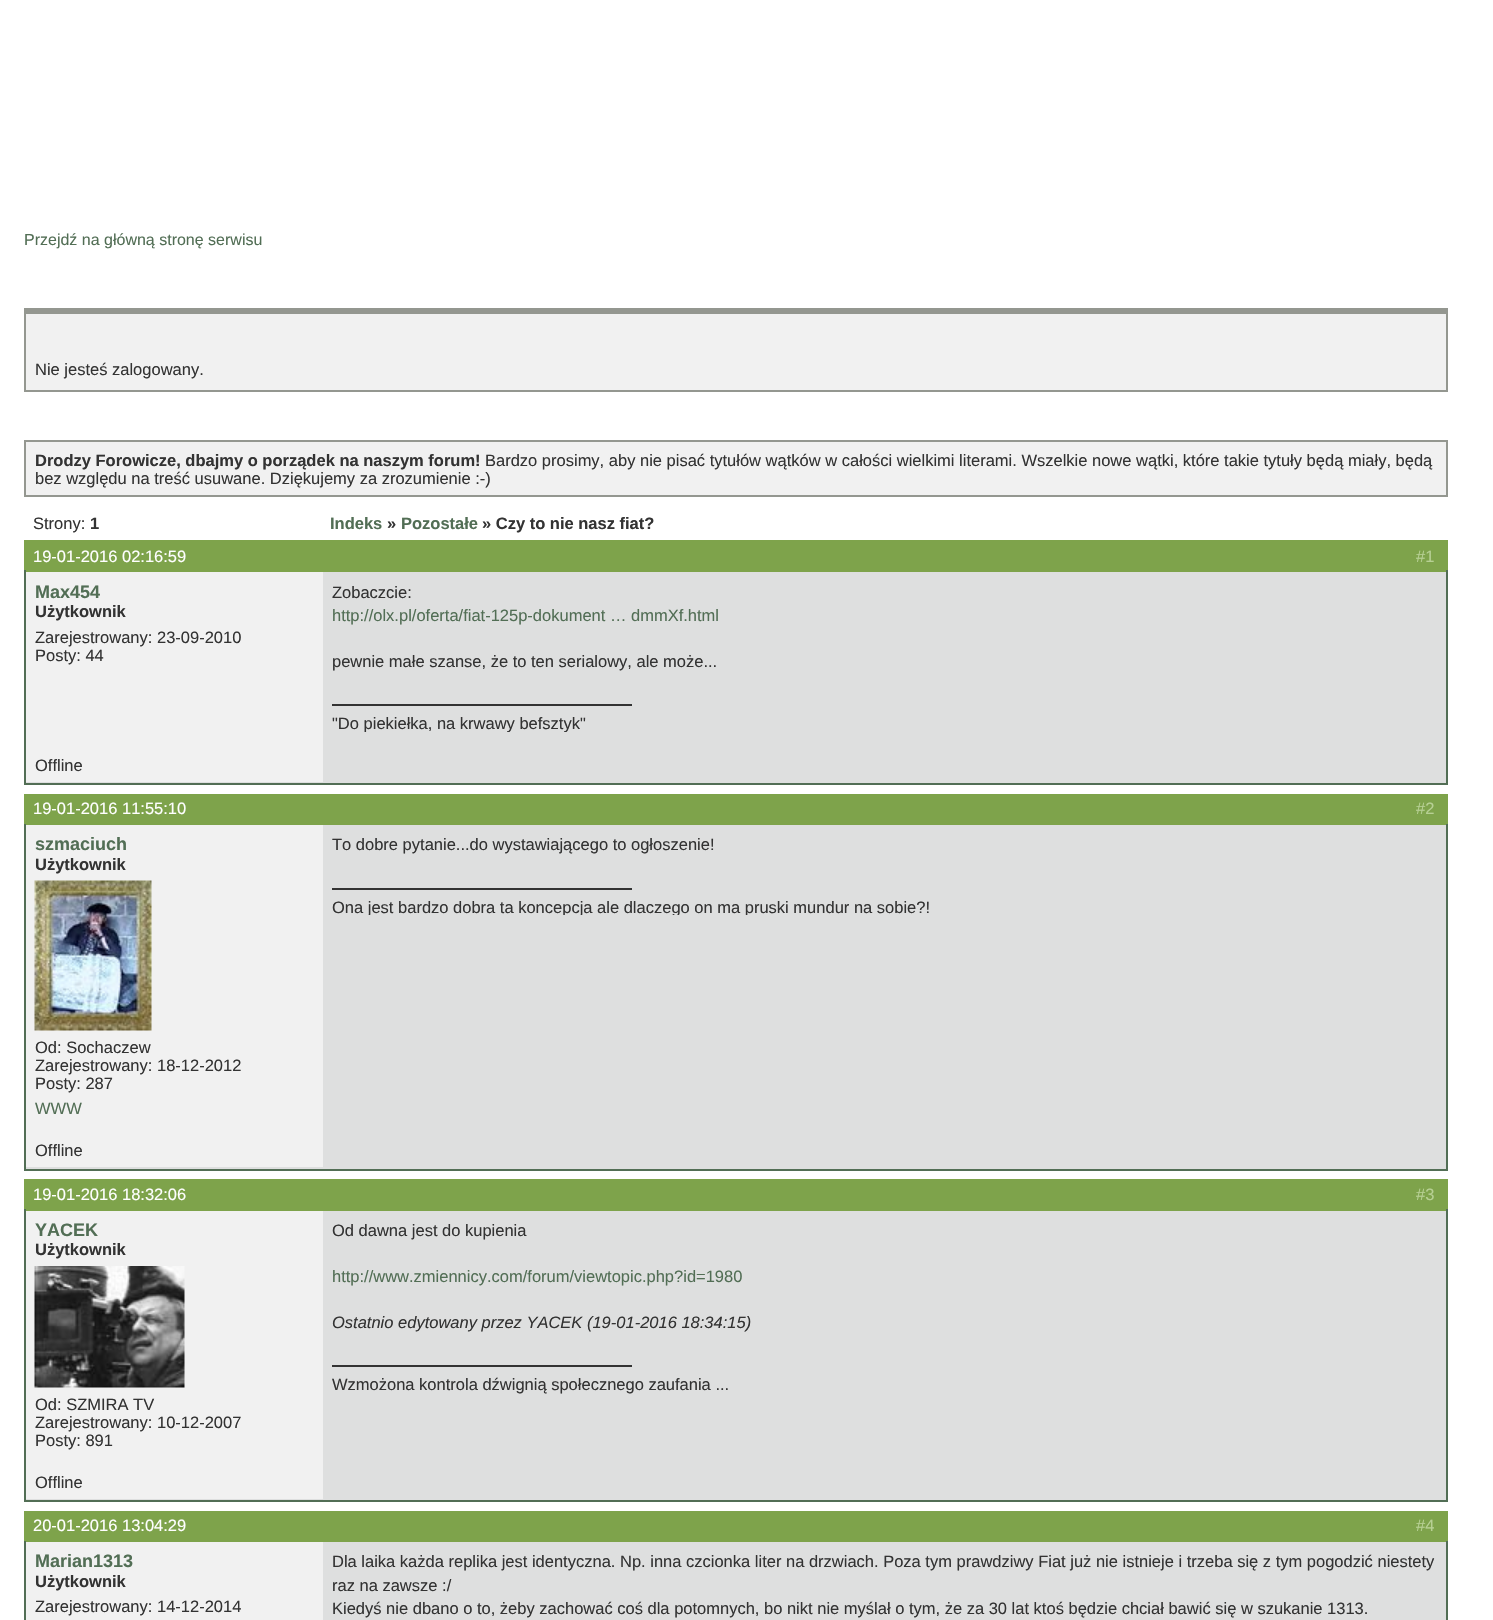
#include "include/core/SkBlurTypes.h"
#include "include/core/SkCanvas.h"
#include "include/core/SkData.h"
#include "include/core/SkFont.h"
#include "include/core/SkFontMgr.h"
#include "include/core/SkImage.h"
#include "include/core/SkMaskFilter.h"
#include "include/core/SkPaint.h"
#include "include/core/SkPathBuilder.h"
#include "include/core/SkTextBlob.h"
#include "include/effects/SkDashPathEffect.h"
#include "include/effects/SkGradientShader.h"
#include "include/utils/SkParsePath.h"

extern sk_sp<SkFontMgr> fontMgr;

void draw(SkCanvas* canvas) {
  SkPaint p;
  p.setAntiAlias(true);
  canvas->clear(SK_ColorWHITE);
  p.setColor(SkColorSetRGB(241, 241, 241));
  canvas->drawRect(SkRect::MakeLTRB(26, 314, 1446, 390), p);
  p.setColor(SkColorSetRGB(148, 151, 144));
  canvas->drawRect(SkRect::MakeLTRB(24, 308, 1448, 314), p);
  canvas->drawRect(SkRect::MakeLTRB(1446, 308, 1448, 392), p);
  canvas->drawRect(SkRect::MakeLTRB(24, 390, 1448, 392), p);
  canvas->drawRect(SkRect::MakeLTRB(24, 308, 26, 392), p);
  p.setColor(SkColorSetRGB(241, 241, 241));
  canvas->drawRect(SkRect::MakeLTRB(25, 441, 1447, 496), p);
  p.setStyle(SkPaint::kStroke_Style);
  p.setStrokeWidth(2);
  p.setColor(SkColorSetRGB(148, 151, 144));
  canvas->drawRect(SkRect::MakeLTRB(25, 441, 1447, 496), p);
  p.setStyle(SkPaint::kFill_Style);
  p.setColor(SkColorSetRGB(126, 163, 75));
  canvas->drawRect(SkRect::MakeLTRB(24, 540, 1448, 572), p);
  p.setColor(SkColorSetRGB(222, 223, 223));
  canvas->drawRect(SkRect::MakeLTRB(26, 572, 1446, 783), p);
  p.setColor(SkColorSetRGB(82, 110, 85));
  canvas->drawRect(SkRect::MakeLTRB(1446, 570, 1448, 785), p);
  canvas->drawRect(SkRect::MakeLTRB(24, 783, 1448, 785), p);
  canvas->drawRect(SkRect::MakeLTRB(24, 570, 26, 785), p);
  p.setColor(SkColorSetRGB(241, 241, 241));
  canvas->drawRect(SkRect::MakeLTRB(26, 572, 323, 782), p);
  p.setColor(SkColorSetRGB(51, 51, 51));
  canvas->drawRect(SkRect::MakeLTRB(332, 704, 632, 706), p);
  p.setColor(SkColorSetRGB(126, 163, 75));
  canvas->drawRect(SkRect::MakeLTRB(24, 794, 1448, 825), p);
  p.setColor(SkColorSetRGB(222, 223, 223));
  canvas->drawRect(SkRect::MakeLTRB(26, 924, 1446, 1169), p);
  p.setColor(SkColorSetRGB(82, 110, 85));
  canvas->drawRect(SkRect::MakeLTRB(1446, 824, 1448, 1170), p);
  canvas->drawRect(SkRect::MakeLTRB(24, 1169, 1448, 1171), p);
  canvas->drawRect(SkRect::MakeLTRB(24, 824, 26, 1170), p);
  p.setColor(SkColorSetRGB(241, 241, 241));
  canvas->drawRect(SkRect::MakeLTRB(26, 825, 323, 1167), p);
  canvas->drawImageRect(SkImages::DeferredFromEncodedData(SkData::MakeFromFileName("images/1.png")), SkRect::MakeLTRB(34, 880, 152, 1031), SkSamplingOptions());
  p.setColor(SkColorSetRGB(222, 223, 223));
  canvas->drawRect(SkRect::MakeLTRB(323, 825, 1446, 924), p);
  p.setColor(SkColorSetRGB(51, 51, 51));
  canvas->drawRect(SkRect::MakeLTRB(332, 888, 632, 890), p);
  p.setColor(SkColorSetRGB(126, 163, 75));
  canvas->drawRect(SkRect::MakeLTRB(24, 1179, 1448, 1211), p);
  p.setColor(SkColorSetRGB(222, 223, 223));
  canvas->drawRect(SkRect::MakeLTRB(26, 1211, 1446, 1500), p);
  p.setColor(SkColorSetRGB(82, 110, 85));
  canvas->drawRect(SkRect::MakeLTRB(1446, 1209, 1448, 1502), p);
  canvas->drawRect(SkRect::MakeLTRB(24, 1500, 1448, 1502), p);
  canvas->drawRect(SkRect::MakeLTRB(24, 1209, 26, 1502), p);
  p.setColor(SkColorSetRGB(241, 241, 241));
  canvas->drawRect(SkRect::MakeLTRB(26, 1211, 323, 1499), p);
  canvas->drawImageRect(SkImages::DeferredFromEncodedData(SkData::MakeFromFileName("images/2.png")), SkRect::MakeLTRB(34, 1266, 185, 1388), SkSamplingOptions());
  p.setColor(SkColorSetRGB(51, 51, 51));
  canvas->drawRect(SkRect::MakeLTRB(332, 1365, 632, 1367), p);
  p.setColor(SkColorSetRGB(126, 163, 75));
  canvas->drawRect(SkRect::MakeLTRB(24, 1511, 1448, 1542), p);
  p.setColor(SkColorSetRGB(82, 110, 85));
  canvas->drawRect(SkRect::MakeLTRB(1446, 1541, 1448, 1620), p);
  canvas->drawRect(SkRect::MakeLTRB(24, 1541, 26, 1620), p);
  p.setColor(SkColorSetRGB(222, 223, 223));
  canvas->drawRect(SkRect::MakeLTRB(323, 1542, 1446, 1620), p);
  p.setColor(SkColorSetRGB(241, 241, 241));
  canvas->drawRect(SkRect::MakeLTRB(26, 1542, 323, 1620), p);
  SkFont font1(fontMgr->matchFamilyStyle("Liberation Sans", SkFontStyle::Normal()), 16);
  font1.setSubpixel(true);
  p.setColor(SkColorSetRGB(82, 110, 85));
  canvas->drawString("Przejdź na główną stronę serwisu", 24, 245, font1, p);
  SkFont font2(fontMgr->matchFamilyStyle("Liberation Sans", SkFontStyle::Normal()), 16.5f);
  font2.setSubpixel(true);
  p.setColor(SkColorSetRGB(51, 51, 51));
  canvas->drawString("Nie jesteś zalogowany.", 35, 375, font2, p);
  SkFont font3(fontMgr->matchFamilyStyle("Liberation Sans", SkFontStyle::Bold()), 16.5f);
  font3.setSubpixel(true);
  canvas->drawString("Drodzy Forowicze, dbajmy o porządek na naszym forum!", 35, 466, font3, p);
  canvas->drawString("Bardzo prosimy, aby nie pisać tytułów wątków w całości wielkimi literami. Wszelkie nowe wątki, które takie tytuły będą miały, będą", 485, 466, font2, p);
  canvas->drawString("bez względu na treść usuwane. Dziękujemy za zrozumienie :-)", 35, 484, font2, p);
  canvas->drawString("Strony:", 33, 529, font2, p);
  canvas->drawString("1", 90, 529, font3, p);
  p.setColor(SkColorSetRGB(82, 110, 85));
  canvas->drawString("Indeks", 330, 529, font3, p);
  p.setColor(SkColorSetRGB(51, 51, 51));
  canvas->drawString("»", 387, 529, font3, p);
  p.setColor(SkColorSetRGB(82, 110, 85));
  canvas->drawString("Pozostałe", 401, 529, font3, p);
  p.setColor(SkColorSetRGB(51, 51, 51));
  canvas->drawString("» Czy to nie nasz fiat?", 482, 529, font3, p);
  p.setColor(SK_ColorWHITE);
  canvas->drawString("19-01-2016 02:16:59", 33, 562, font2, p);
  p.setColor(SkColorSetRGB(183, 208, 148));
  canvas->drawString("#1", 1416, 562, font2, p);
  SkFont font4(fontMgr->matchFamilyStyle("Liberation Sans", SkFontStyle::Bold()), 18);
  font4.setSubpixel(true);
  p.setColor(SkColorSetRGB(82, 110, 85));
  canvas->drawString("Max454", 35, 598, font4, p);
  p.setColor(SkColorSetRGB(51, 51, 51));
  canvas->drawString("Użytkownik", 35, 617, font3, p);
  canvas->drawString("Zarejestrowany: 23-09-2010", 35, 643, font2, p);
  canvas->drawString("Posty: 44", 35, 661, font2, p);
  canvas->drawString("Zobaczcie:", 332, 598, font2, p);
  p.setColor(SkColorSetRGB(82, 110, 85));
  canvas->drawString("http://olx.pl/oferta/fiat-125p-dokument … dmmXf.html", 332, 621, font2, p);
  p.setColor(SkColorSetRGB(51, 51, 51));
  canvas->drawString("pewnie małe szanse, że to ten serialowy, ale może...", 332, 667, font2, p);
  canvas->save();
  canvas->clipRect(SkRect::MakeLTRB(332, 674, 1437, 732));
  canvas->drawString("\"Do piekiełka, na krwawy befsztyk\"", 332, 729, font2, p);
  canvas->restore();
  canvas->drawString("Offline", 35, 771, font2, p);
  p.setColor(SK_ColorWHITE);
  canvas->drawString("19-01-2016 11:55:10", 33, 814, font2, p);
  p.setColor(SkColorSetRGB(183, 208, 148));
  canvas->drawString("#2", 1416, 814, font2, p);
  p.setColor(SkColorSetRGB(82, 110, 85));
  canvas->drawString("szmaciuch", 35, 850, font4, p);
  p.setColor(SkColorSetRGB(51, 51, 51));
  canvas->drawString("Użytkownik", 35, 870, font3, p);
  canvas->drawString("Od: Sochaczew", 35, 1053, font2, p);
  canvas->drawString("Zarejestrowany: 18-12-2012", 35, 1071, font2, p);
  canvas->drawString("Posty: 287", 35, 1089, font2, p);
  p.setColor(SkColorSetRGB(82, 110, 85));
  canvas->drawString("WWW", 35, 1114, font2, p);
  p.setColor(SkColorSetRGB(51, 51, 51));
  canvas->drawString("To dobre pytanie...do wystawiającego to ogłoszenie!", 332, 850, font2, p);
  canvas->save();
  canvas->clipRect(SkRect::MakeLTRB(332, 857, 1437, 915));
  canvas->drawString("Ona jest bardzo dobra ta koncepcja ale dlaczego on ma pruski mundur na sobie?!", 332, 913, font2, p);
  canvas->restore();
  canvas->drawString("Offline", 35, 1156, font2, p);
  p.setColor(SK_ColorWHITE);
  canvas->drawString("19-01-2016 18:32:06", 33, 1200, font2, p);
  p.setColor(SkColorSetRGB(183, 208, 148));
  canvas->drawString("#3", 1416, 1200, font2, p);
  p.setColor(SkColorSetRGB(82, 110, 85));
  canvas->drawString("YACEK", 35, 1236, font4, p);
  p.setColor(SkColorSetRGB(51, 51, 51));
  canvas->drawString("Użytkownik", 35, 1255, font3, p);
  canvas->drawString("Od: SZMIRA TV", 35, 1410, font2, p);
  canvas->drawString("Zarejestrowany: 10-12-2007", 35, 1428, font2, p);
  canvas->drawString("Posty: 891", 35, 1446, font2, p);
  canvas->drawString("Od dawna jest do kupienia", 332, 1236, font2, p);
  p.setColor(SkColorSetRGB(82, 110, 85));
  canvas->drawString("http://www.zmiennicy.com/forum/viewtopic.php?id=1980", 332, 1282, font2, p);
  SkFont font5(fontMgr->matchFamilyStyle("Liberation Sans", SkFontStyle::Italic()), 16.5f);
  font5.setSubpixel(true);
  p.setColor(SkColorSetRGB(51, 51, 51));
  canvas->drawString("Ostatnio edytowany przez YACEK (19-01-2016 18:34:15)", 332, 1328, font5, p);
  canvas->drawString("Wzmożona kontrola dźwignią społecznego zaufania ...", 332, 1390, font2, p);
  canvas->drawString("Offline", 35, 1488, font2, p);
  p.setColor(SK_ColorWHITE);
  canvas->drawString("20-01-2016 13:04:29", 33, 1531, font2, p);
  p.setColor(SkColorSetRGB(183, 208, 148));
  canvas->drawString("#4", 1416, 1531, font2, p);
  p.setColor(SkColorSetRGB(82, 110, 85));
  canvas->drawString("Marian1313", 35, 1567, font4, p);
  p.setColor(SkColorSetRGB(51, 51, 51));
  canvas->drawString("Użytkownik", 35, 1587, font3, p);
  canvas->drawString("Zarejestrowany: 14-12-2014", 35, 1612, font2, p);
  canvas->drawString("Dla laika każda replika jest identyczna. Np. inna czcionka liter na drzwiach. Poza tym prawdziwy Fiat już nie istnieje i trzeba się z tym pogodzić niestety", 332, 1567, font2, p);
  canvas->drawString("raz na zawsze :/", 332, 1591, font2, p);
  canvas->drawString("Kiedyś nie dbano o to, żeby zachować coś dla potomnych, bo nikt nie myślał o tym, że za 30 lat ktoś będzie chciał bawić się w szukanie 1313.", 332, 1614, font2, p);
}
